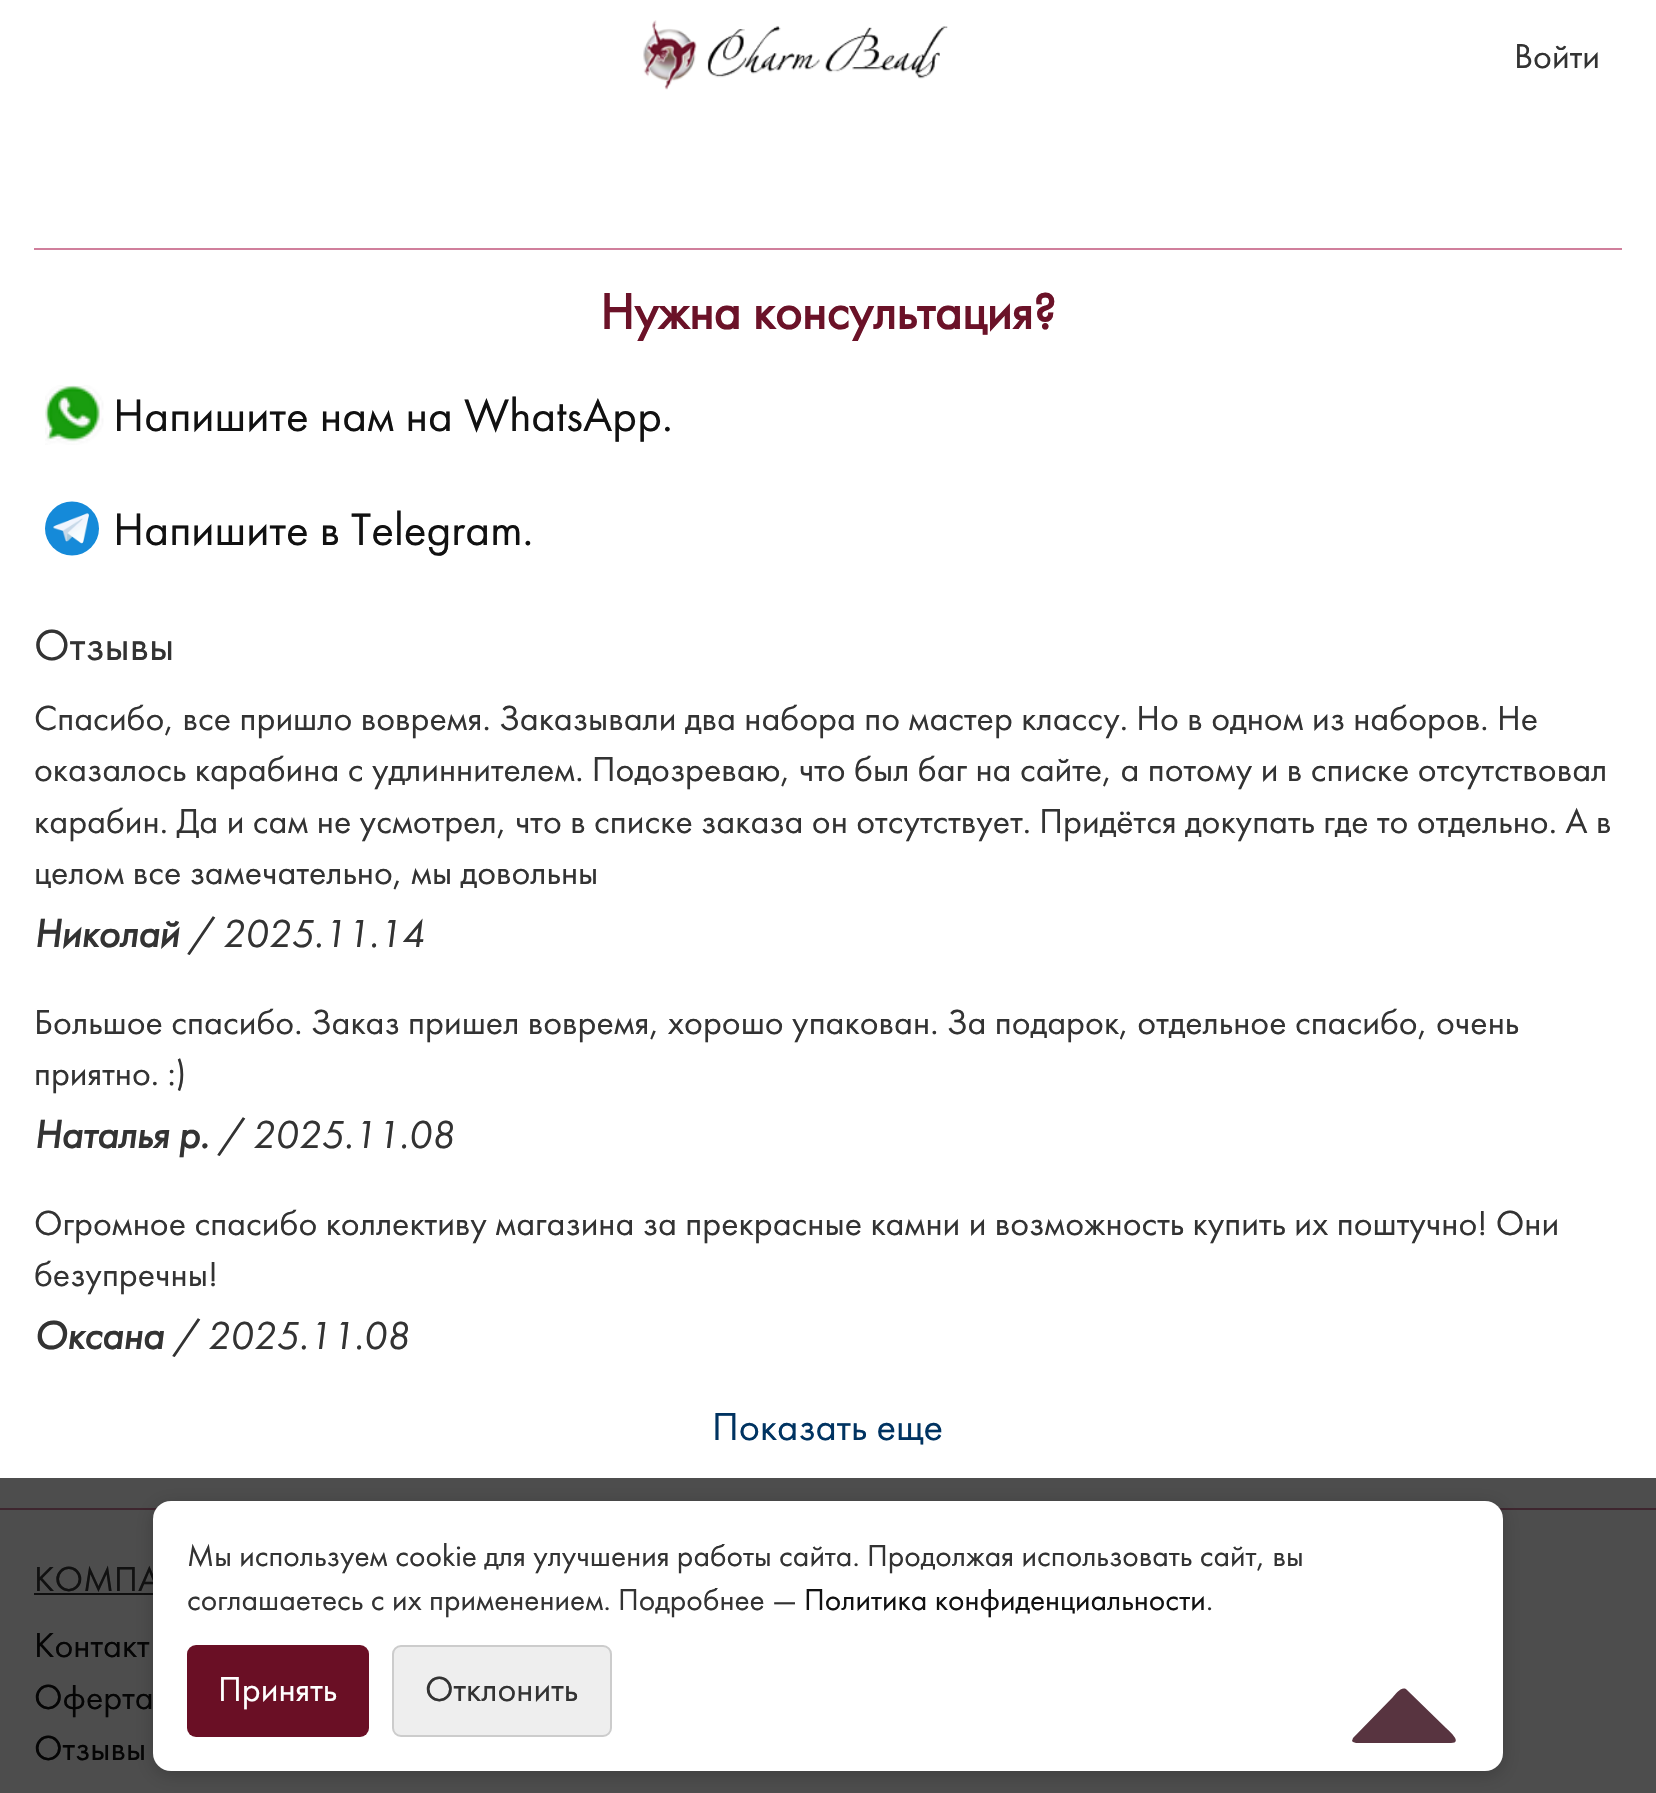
#include "include/core/SkBlurTypes.h"
#include "include/core/SkCanvas.h"
#include "include/core/SkData.h"
#include "include/core/SkFont.h"
#include "include/core/SkFontMgr.h"
#include "include/core/SkImage.h"
#include "include/core/SkMaskFilter.h"
#include "include/core/SkPaint.h"
#include "include/core/SkPathBuilder.h"
#include "include/core/SkTextBlob.h"
#include "include/effects/SkDashPathEffect.h"
#include "include/effects/SkGradientShader.h"
#include "include/utils/SkParsePath.h"

extern sk_sp<SkFontMgr> fontMgr;

void draw(SkCanvas* canvas) {
  SkPaint p;
  p.setAntiAlias(true);
  canvas->clear(SK_ColorWHITE);
  p.setColor(SkColorSetRGB(77, 77, 77));
  canvas->drawRect(SkRect::MakeLTRB(0, 1478, 1656, 1793), p);
  canvas->drawImageRect(SkImages::DeferredFromEncodedData(SkData::MakeFromFileName("images/1.png")), SkRect::MakeLTRB(643, 20, 948, 90), SkSamplingOptions());
  p.setColor(SkColorSetRGB(208, 127, 156));
  canvas->drawRect(SkRect::MakeLTRB(34, 248, 1622, 250), p);
  canvas->drawImageRect(SkImages::DeferredFromEncodedData(SkData::MakeFromFileName("images/2.png")), SkRect::MakeLTRB(45, 385, 104, 445), SkSamplingOptions());
  canvas->drawImageRect(SkImages::DeferredFromEncodedData(SkData::MakeFromFileName("images/3.png")), SkRect::MakeLTRB(45, 501, 99, 556), SkSamplingOptions());
  p.setColor(SkColorSetRGB(62, 38, 47));
  canvas->drawRect(SkRect::MakeLTRB(0, 1508, 1656, 1510), p);
  p.setColor(SkColorSetRGB(15, 15, 15));
  canvas->drawRect(SkRect::MakeLTRB(34, 1593, 153, 1595), p);
  p.setColor(SkColorSetARGB(51, 0, 0, 0));
  p.setMaskFilter(SkMaskFilter::MakeBlur(kNormal_SkBlurStyle, 9));
  canvas->drawRoundRect(SkRect::MakeLTRB(153, 1505, 1503, 1775), 18, 18, p);
  p.setMaskFilter(nullptr);
  SkFont font1(fontMgr->matchFamilyStyle("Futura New", SkFontStyle::Normal()), 36);
  font1.setSubpixel(true);
  p.setColor(SkColorSetRGB(51, 51, 51));
  canvas->drawString("Войти", 1514, 68, font1, p);
  SkFont font2(fontMgr->matchFamilyStyle("Futura New", SkFontStyle::Bold()), 51.75f);
  font2.setSubpixel(true);
  p.setColor(SkColorSetRGB(107, 18, 40));
  canvas->drawString("Нужна консультация?", 600, 329, font2, p);
  SkFont font3(fontMgr->matchFamilyStyle("Futura New", SkFontStyle::Normal()), 47.25f);
  font3.setSubpixel(true);
  p.setColor(SkColorSetRGB(17, 17, 17));
  canvas->drawString("Напишите нам на WhatsApp.", 113, 431, font3, p);
  canvas->drawString("Напишите в Telegram.", 113, 545, font3, p);
  SkFont font4(fontMgr->matchFamilyStyle("Futura New", SkFontStyle::Normal()), 45);
  font4.setSubpixel(true);
  p.setColor(SkColorSetRGB(51, 51, 51));
  canvas->drawString("Отзывы", 34, 660, font4, p);
  canvas->drawString("Спасибо, все пришло вовремя. Заказывали два набора по мастер классу. Но в одном из наборов. Не", 34, 730, font1, p);
  canvas->drawString("оказалось карабина с удлиннителем. Подозреваю, что был баг на сайте, а потому и в списке отсутствовал", 34, 781, font1, p);
  canvas->drawString("карабин. Да и сам не усмотрел, что в списке заказа он отсутствует. Придётся докупать где то отдельно. А в", 34, 833, font1, p);
  canvas->drawString("целом все замечательно, мы довольны", 34, 884, font1, p);
  SkFont font5(fontMgr->matchFamilyStyle("Futura New", SkFontStyle::BoldItalic()), 40.5f);
  font5.setSubpixel(true);
  canvas->drawString("Николай", 34, 947, font5, p);
  SkFont font6(fontMgr->matchFamilyStyle("Futura New", SkFontStyle::Italic()), 40.5f);
  font6.setSubpixel(true);
  canvas->drawString("/ 2025.11.14", 188, 947, font6, p);
  canvas->drawString("Большое спасибо. Заказ пришел вовремя, хорошо упакован. За подарок, отдельное спасибо, очень", 34, 1034, font1, p);
  canvas->drawString("приятно. :)", 34, 1085, font1, p);
  canvas->drawString("Наталья р.", 34, 1148, font5, p);
  canvas->drawString("/ 2025.11.08", 218, 1148, font6, p);
  canvas->drawString("Огромное спасибо коллективу магазина за прекрасные камни и возможность купить их поштучно! Они", 34, 1235, font1, p);
  canvas->drawString("безупречны!", 34, 1286, font1, p);
  canvas->drawString("Оксана", 34, 1349, font5, p);
  canvas->drawString("/ 2025.11.08", 173, 1349, font6, p);
  SkFont font7(fontMgr->matchFamilyStyle("Futura New", SkFontStyle::Normal()), 40.5f);
  font7.setSubpixel(true);
  p.setColor(SkColorSetRGB(0, 51, 97));
  canvas->drawString("Показать еще", 712, 1440, font7, p);
  p.setColor(SkColorSetRGB(17, 17, 17));
  canvas->drawString("КОМПА", 34, 1591, font1, p);
  p.setColor(SkColorSetRGB(5, 5, 5));
  canvas->drawString("Контакт", 34, 1657, font1, p);
  canvas->drawString("Оферта", 34, 1709, font1, p);
  canvas->drawString("Отзывы", 34, 1760, font1, p);
  p.setColor(SK_ColorWHITE);
  canvas->drawRoundRect(SkRect::MakeLTRB(153, 1501, 1503, 1771), 18, 18, p);
  SkFont font8(fontMgr->matchFamilyStyle("Futura New", SkFontStyle::Normal()), 31.5f);
  font8.setSubpixel(true);
  p.setColor(SkColorSetRGB(51, 51, 51));
  canvas->drawString("Мы используем cookie для улучшения работы сайта. Продолжая использовать сайт, вы", 187, 1566, font8, p);
  canvas->drawString("соглашаетесь с их применением. Подробнее —", 187, 1610, font8, p);
  p.setColor(SkColorSetRGB(17, 17, 17));
  canvas->drawString("Политика конфиденциальности", 804, 1610, font8, p);
  p.setColor(SkColorSetRGB(51, 51, 51));
  canvas->drawString(".", 1206, 1610, font8, p);
  p.setColor(SkColorSetRGB(106, 15, 37));
  canvas->drawRoundRect(SkRect::MakeLTRB(187, 1645, 369, 1737), 9, 9, p);
  p.setColor(SK_ColorWHITE);
  canvas->drawString("Принять", 218, 1701, font1, p);
  p.setColor(SkColorSetRGB(238, 238, 238));
  canvas->drawRoundRect(SkRect::MakeLTRB(393, 1646, 611, 1736), 8, 8, p);
  p.setStyle(SkPaint::kStroke_Style);
  p.setStrokeWidth(2);
  p.setColor(SkColorSetRGB(204, 204, 204));
  canvas->drawRoundRect(SkRect::MakeLTRB(393, 1646, 611, 1736), 8, 8, p);
  p.setStyle(SkPaint::kFill_Style);
  p.setColor(SkColorSetRGB(51, 51, 51));
  canvas->drawString("Отклонить", 425, 1701, font1, p);
  p.setColor(SkColorSetRGB(88, 52, 64));
  canvas->drawPath(SkPathBuilder().moveTo(1407, 1690).lineTo(1446, 1728).cubicTo(1447, 1729, 1464, 1743, 1451, 1743).lineTo(1356, 1743).lineTo(1353, 1742).lineTo(1352, 1741).lineTo(1353, 1738).lineTo(1393, 1697).cubicTo(1395, 1695, 1402, 1685, 1407, 1690).close().detach(), p);
}
